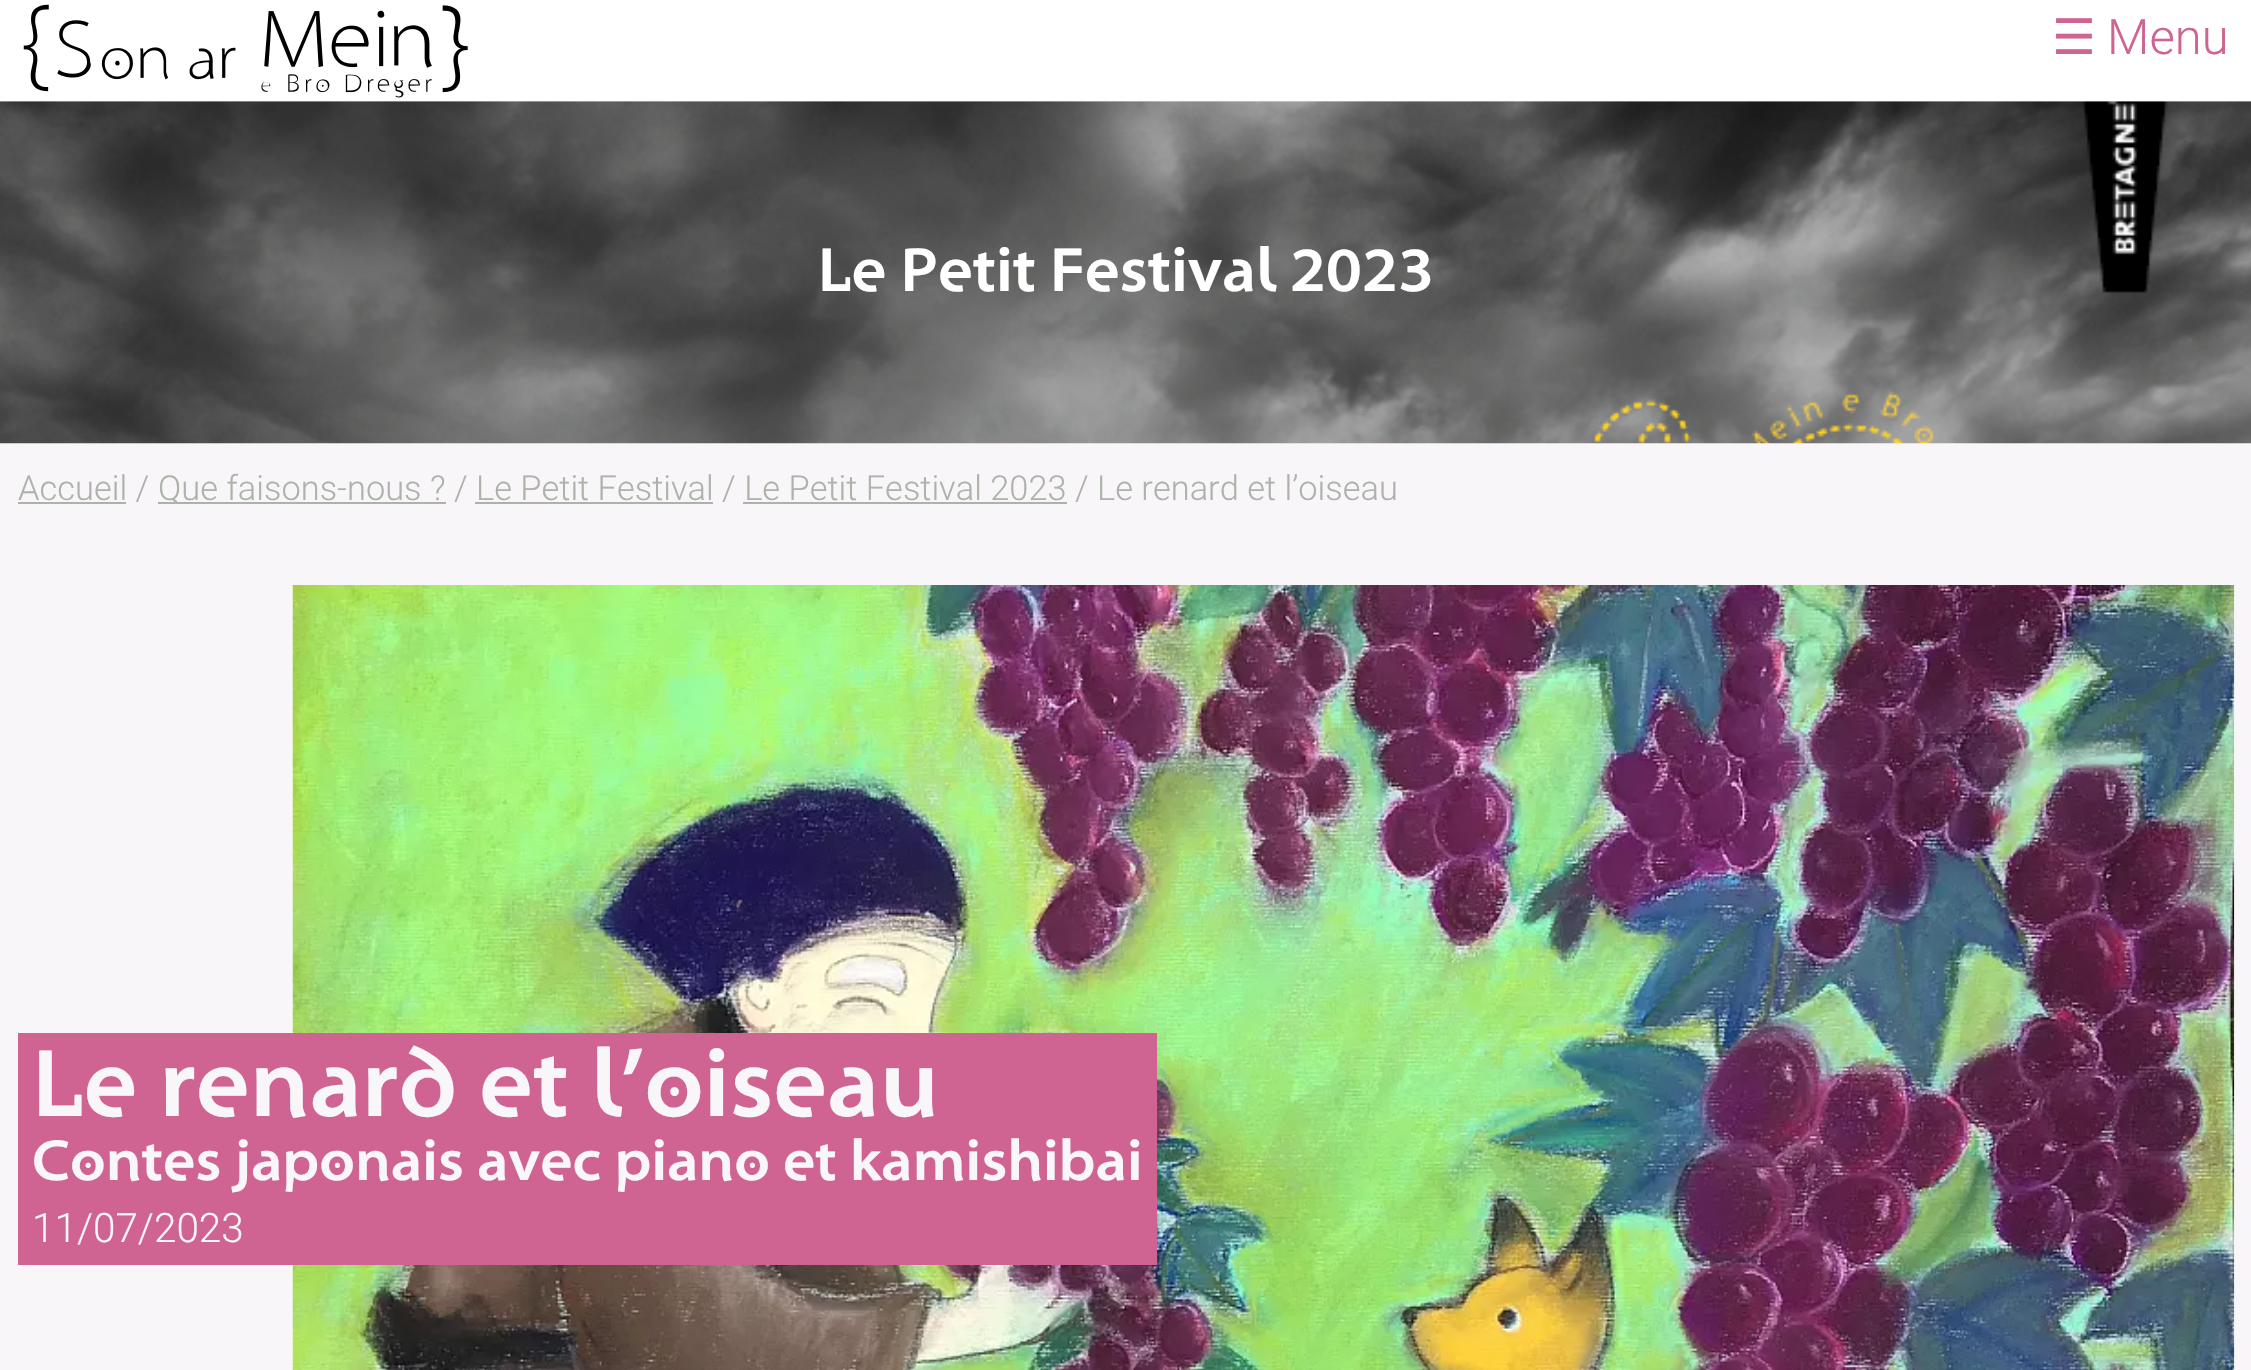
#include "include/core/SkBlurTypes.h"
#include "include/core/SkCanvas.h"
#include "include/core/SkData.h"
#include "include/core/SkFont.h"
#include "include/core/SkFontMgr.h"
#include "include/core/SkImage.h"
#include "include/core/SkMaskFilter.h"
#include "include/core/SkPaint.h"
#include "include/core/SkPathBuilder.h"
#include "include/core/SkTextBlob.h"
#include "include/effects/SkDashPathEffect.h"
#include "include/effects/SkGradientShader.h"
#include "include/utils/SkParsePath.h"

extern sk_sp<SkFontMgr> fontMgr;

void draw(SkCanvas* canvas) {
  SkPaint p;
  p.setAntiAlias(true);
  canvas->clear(SkColorSetRGB(248, 246, 248));
  canvas->drawImageRect(SkImages::DeferredFromEncodedData(SkData::MakeFromFileName("images/2.png")), SkRect::MakeLTRB(0, 101, 2251, 444), SkSamplingOptions());
  p.setColor(SkColorSetARGB(15, 0, 0, 0));
  p.setMaskFilter(SkMaskFilter::MakeBlur(kNormal_SkBlurStyle, 11));
  canvas->drawRect(SkRect::MakeLTRB(-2, 16, 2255, 122), p);
  p.setMaskFilter(nullptr);
  p.setColor(SK_ColorWHITE);
  canvas->drawRect(SkRect::MakeLTRB(0, 0, 2251, 101), p);
  canvas->drawImageRect(SkImages::DeferredFromEncodedData(SkData::MakeFromFileName("images/1.png")), SkRect::MakeLTRB(23, 4, 468, 98), SkSamplingOptions());
  p.setColor(SkColorSetRGB(173, 178, 171));
  canvas->drawRect(SkRect::MakeLTRB(18, 502, 126, 504), p);
  canvas->drawRect(SkRect::MakeLTRB(158, 502, 446, 504), p);
  canvas->drawRect(SkRect::MakeLTRB(475, 502, 713, 504), p);
  canvas->drawRect(SkRect::MakeLTRB(743, 502, 1067, 504), p);
  canvas->drawImageRect(SkImages::DeferredFromEncodedData(SkData::MakeFromFileName("images/3.png")), SkRect::MakeLTRB(292, 585, 2235, 1370), SkSamplingOptions());
  p.setColor(SkColorSetRGB(207, 100, 147));
  canvas->drawRect(SkRect::MakeLTRB(18, 1033, 1157, 1265), p);
  SkFont font1(fontMgr->matchFamilyStyle("DejaVu Sans", SkFontStyle::Normal()), 49);
  font1.setSubpixel(true);
  canvas->drawString("☰", 2052, 54, font1, p);
  SkFont font2(fontMgr->matchFamilyStyle("Roboto", SkFontStyle(300, SkFontStyle::kNormal_Width, SkFontStyle::kUpright_Slant)), 49);
  font2.setSubpixel(true);
  canvas->drawString("Menu", 2107, 54, font2, p);
  SkFont font3(fontMgr->matchFamilyStyle("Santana", SkFontStyle::Bold()), 63);
  font3.setSubpixel(true);
  p.setColor(SK_ColorWHITE);
  canvas->drawString("Le Petit Festival 2023", 818, 291, font3, p);
  SkFont font4(fontMgr->matchFamilyStyle("Roboto", SkFontStyle(300, SkFontStyle::kNormal_Width, SkFontStyle::kUpright_Slant)), 34.45f);
  font4.setSubpixel(true);
  p.setColor(SkColorSetRGB(173, 178, 171));
  canvas->drawString("Accueil /", 18, 500, font4, p);
  canvas->drawString("Que faisons-nous ? / Le Petit Festival / Le Petit Festival 2023 / Le renard et l’oiseau", 158, 500, font4, p);
  SkFont font5(fontMgr->matchFamilyStyle("Santana", SkFontStyle::Bold()), 97.25f);
  font5.setSubpixel(true);
  p.setColor(SkColorSetRGB(248, 246, 248));
  canvas->drawString("Le renard et l’oiseau", 32, 1116, font5, p);
  SkFont font6(fontMgr->matchFamilyStyle("Santana", SkFontStyle::Bold()), 58.3f);
  font6.setSubpixel(true);
  canvas->drawString("Contes japonais avec piano et kamishibai", 32, 1180, font6, p);
  SkFont font7(fontMgr->matchFamilyStyle("Roboto", SkFontStyle(300, SkFontStyle::kNormal_Width, SkFontStyle::kUpright_Slant)), 40.5f);
  font7.setSubpixel(true);
  canvas->drawString("11/07/2023", 32, 1242, font7, p);
}
